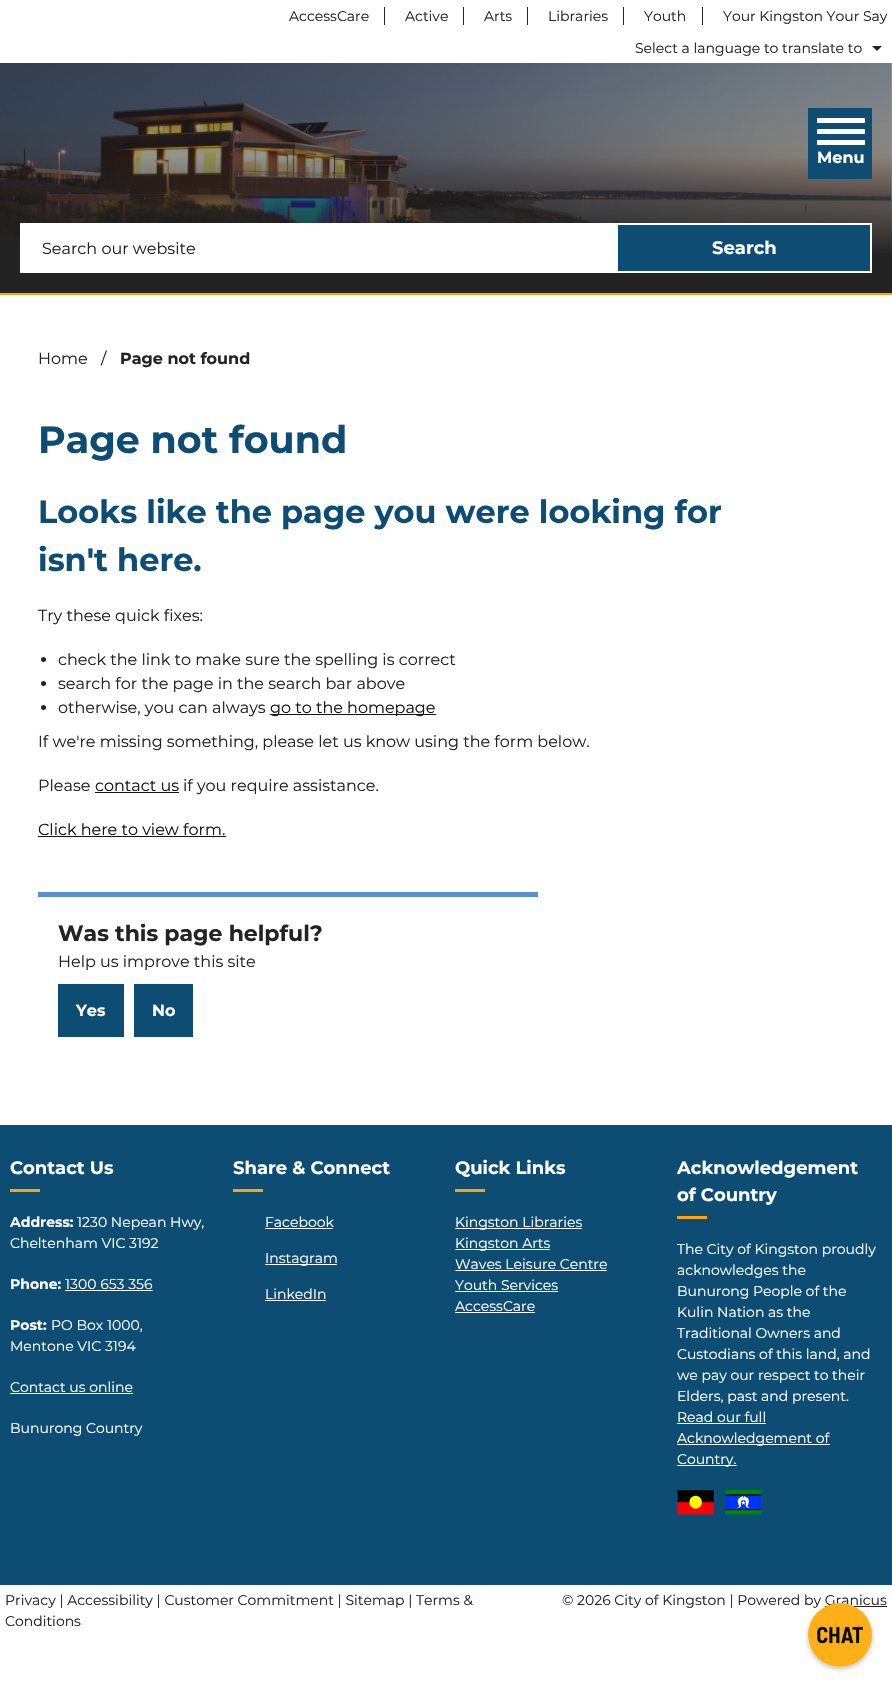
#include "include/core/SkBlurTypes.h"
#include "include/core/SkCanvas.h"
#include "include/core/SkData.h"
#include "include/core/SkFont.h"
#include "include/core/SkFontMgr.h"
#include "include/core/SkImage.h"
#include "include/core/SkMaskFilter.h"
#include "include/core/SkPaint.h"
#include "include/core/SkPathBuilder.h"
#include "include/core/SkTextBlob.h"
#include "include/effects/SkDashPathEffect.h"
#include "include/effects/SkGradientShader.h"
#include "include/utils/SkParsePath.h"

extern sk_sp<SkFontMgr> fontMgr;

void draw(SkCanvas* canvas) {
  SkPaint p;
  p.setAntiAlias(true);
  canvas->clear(SkColorSetRGB(35, 35, 35));
  canvas->drawImageRect(SkImages::DeferredFromEncodedData(SkData::MakeFromFileName("images/1.png")), SkRect::MakeLTRB(0, 63, 892, 254), SkSamplingOptions());
  p.setColor(SK_ColorWHITE);
  canvas->drawRect(SkRect::MakeLTRB(0, 0, 892, 63), p);
  p.setColor(SkColorSetRGB(35, 35, 35));
  canvas->drawRect(SkRect::MakeLTRB(384, 7, 385, 25), p);
  canvas->drawRect(SkRect::MakeLTRB(463, 7, 464, 25), p);
  canvas->drawRect(SkRect::MakeLTRB(527, 7, 528, 25), p);
  canvas->drawRect(SkRect::MakeLTRB(623, 7, 624, 25), p);
  canvas->drawRect(SkRect::MakeLTRB(702, 7, 703, 25), p);
  canvas->drawPath(SkPathBuilder().moveTo(872, 46).lineTo(882, 46).lineTo(877, 51).close().detach(), p);
  {
    const SkColor colors[] = {SkColorSetRGB(35, 35, 35), SkColorSetARGB(0, 35, 35, 35)};
    const float stops[] = {0, 0.39f};
    const SkPoint ends[] = {{446, 255}, {446, 1}};
    p.setShader(SkGradientShader::MakeLinear(ends, colors, stops, 2, SkTileMode::kClamp));
    p.setAlpha(255);
  }
  canvas->drawRect(SkRect::MakeLTRB(0, 158, 892, 254), p);
  {
    const SkColor colors[] = {SkColorSetARGB(125, 35, 35, 35), SkColorSetARGB(125, 35, 35, 35), SkColorSetARGB(64, 35, 35, 35)};
    const float stops[] = {0, 0.5f, 1};
    const SkPoint ends[] = {{446, 63}, {446, 293}};
    p.setShader(SkGradientShader::MakeLinear(ends, colors, stops, 3, SkTileMode::kClamp));
    p.setAlpha(255);
  }
  canvas->drawRect(SkRect::MakeLTRB(0, 63, 892, 251), p);
  p.setShader(nullptr);
  p.setColor(SkColorSetRGB(13, 77, 115));
  canvas->drawRect(SkRect::MakeLTRB(808, 108, 872, 179), p);
  p.setColor(SK_ColorWHITE);
  canvas->drawRect(SkRect::MakeLTRB(817, 129, 865, 134), p);
  canvas->drawRect(SkRect::MakeLTRB(817, 118, 865, 123), p);
  canvas->drawRect(SkRect::MakeLTRB(817, 140, 865, 145), p);
  canvas->drawRect(SkRect::MakeLTRB(20, 223, 616, 273), p);
  p.setColor(SkColorSetRGB(13, 77, 115));
  canvas->drawRect(SkRect::MakeLTRB(617, 224, 871, 272), p);
  p.setStyle(SkPaint::kStroke_Style);
  p.setStrokeWidth(2);
  p.setColor(SK_ColorWHITE);
  canvas->drawRect(SkRect::MakeLTRB(617, 224, 871, 272), p);
  p.setStyle(SkPaint::kFill_Style);
  canvas->drawRect(SkRect::MakeLTRB(0, 295, 892, 1125), p);
  p.setColor(SkColorSetRGB(255, 164, 0));
  canvas->drawRect(SkRect::MakeLTRB(0, 293, 892, 295), p);
  p.setColor(SkColorSetRGB(35, 35, 35));
  canvas->drawCircle(43.5f, 659.5f, 2.5f, p);
  canvas->drawCircle(43.5f, 683.5f, 2.5f, p);
  canvas->drawCircle(43.5f, 707.5f, 2.5f, p);
  p.setColor(SkColorSetRGB(20, 20, 20));
  canvas->drawRect(SkRect::MakeLTRB(270, 714, 436, 715), p);
  canvas->drawRect(SkRect::MakeLTRB(95, 792, 179, 793), p);
  canvas->drawRect(SkRect::MakeLTRB(38, 836, 226, 837), p);
  p.setColor(SkColorSetRGB(86, 146, 206));
  canvas->drawRect(SkRect::MakeLTRB(38, 892, 538, 897), p);
  p.setColor(SkColorSetRGB(13, 77, 115));
  canvas->drawRect(SkRect::MakeLTRB(58, 984, 124, 1037), p);
  canvas->drawRect(SkRect::MakeLTRB(134, 984, 193, 1037), p);
  canvas->drawRect(SkRect::MakeLTRB(0, 1125, 892, 1585), p);
  p.setColor(SkColorSetRGB(255, 164, 0));
  canvas->drawRect(SkRect::MakeLTRB(10, 1189, 40, 1192), p);
  p.setColor(SK_ColorWHITE);
  canvas->drawRect(SkRect::MakeLTRB(65, 1290, 153, 1291), p);
  canvas->drawRect(SkRect::MakeLTRB(10, 1393, 133, 1394), p);
  p.setColor(SkColorSetRGB(255, 164, 0));
  canvas->drawRect(SkRect::MakeLTRB(233, 1189, 263, 1192), p);
  p.setColor(SK_ColorWHITE);
  canvas->drawRect(SkRect::MakeLTRB(265, 1228, 333, 1229), p);
  canvas->drawRect(SkRect::MakeLTRB(265, 1264, 337, 1265), p);
  canvas->drawRect(SkRect::MakeLTRB(265, 1300, 326, 1301), p);
  p.setColor(SkColorSetRGB(255, 164, 0));
  canvas->drawRect(SkRect::MakeLTRB(455, 1189, 485, 1192), p);
  p.setColor(SK_ColorWHITE);
  canvas->drawRect(SkRect::MakeLTRB(455, 1228, 582, 1229), p);
  canvas->drawRect(SkRect::MakeLTRB(455, 1249, 550, 1250), p);
  canvas->drawRect(SkRect::MakeLTRB(455, 1270, 607, 1271), p);
  canvas->drawRect(SkRect::MakeLTRB(455, 1291, 558, 1292), p);
  canvas->drawRect(SkRect::MakeLTRB(455, 1312, 535, 1313), p);
  p.setColor(SkColorSetRGB(255, 164, 0));
  canvas->drawRect(SkRect::MakeLTRB(677, 1216, 707, 1219), p);
  p.setColor(SK_ColorWHITE);
  canvas->drawRect(SkRect::MakeLTRB(677, 1423, 766, 1424), p);
  canvas->drawRect(SkRect::MakeLTRB(677, 1444, 830, 1445), p);
  canvas->drawRect(SkRect::MakeLTRB(677, 1465, 737, 1466), p);
  canvas->drawImageRect(SkImages::DeferredFromEncodedData(SkData::MakeFromFileName("images/2.png")), SkRect::MakeLTRB(677, 1490, 762, 1515), SkSamplingOptions());
  canvas->drawRect(SkRect::MakeLTRB(0, 1585, 892, 1706), p);
  p.setColor(SkColorSetRGB(35, 35, 35));
  canvas->drawRect(SkRect::MakeLTRB(825, 1606, 887, 1607), p);
  SkFont font1(fontMgr->matchFamilyStyle("Montserrat", SkFontStyle::Normal()), 14);
  font1.setSubpixel(true);
  canvas->drawString("AccessCare", 289, 21, font1, p);
  canvas->drawString("Active", 405, 21, font1, p);
  canvas->drawString("Arts", 484, 21, font1, p);
  canvas->drawString("Libraries", 548, 21, font1, p);
  canvas->drawString("Youth", 644, 21, font1, p);
  canvas->drawString("Your Kingston Your Say", 723, 21, font1, p);
  canvas->drawString("Select a language to translate to", 635, 53, font1, p);
  SkFont font2(fontMgr->matchFamilyStyle("Montserrat", SkFontStyle::Bold()), 16);
  font2.setSubpixel(true);
  p.setColor(SK_ColorWHITE);
  canvas->drawString("Menu", 817, 163, font2, p);
  SkFont font3(fontMgr->matchFamilyStyle("Montserrat", SkFontStyle::Normal()), 16);
  font3.setSubpixel(true);
  p.setColor(SkColorSetRGB(35, 35, 35));
  canvas->drawString("Search our website", 42, 254, font3, p);
  SkFont font4(fontMgr->matchFamilyStyle("Montserrat", SkFontStyle::Bold()), 18);
  font4.setSubpixel(true);
  p.setColor(SK_ColorWHITE);
  canvas->drawString("Search", 712, 254, font4, p);
  p.setColor(SkColorSetRGB(35, 35, 35));
  canvas->drawString("Home", 38, 364, font3, p);
  canvas->drawString("/", 101, 364, font3, p);
  canvas->drawString("Page not found", 120, 364, font2, p);
  SkFont font5(fontMgr->matchFamilyStyle("Montserrat", SkFontStyle::Bold()), 38);
  font5.setSubpixel(true);
  p.setColor(SkColorSetRGB(13, 77, 115));
  canvas->drawString("Page not found", 38, 453, font5, p);
  SkFont font6(fontMgr->matchFamilyStyle("Montserrat", SkFontStyle::Bold()), 32);
  font6.setSubpixel(true);
  canvas->drawString("Looks like the page you were looking for", 38, 523, font6, p);
  canvas->drawString("isn't here.", 38, 571, font6, p);
  p.setColor(SkColorSetRGB(35, 35, 35));
  canvas->drawString("Try these quick fixes:", 38, 621, font3, p);
  canvas->drawString("check the link to make sure the spelling is correct", 58, 665, font3, p);
  canvas->drawString("search for the page in the search bar above", 58, 689, font3, p);
  canvas->drawString("otherwise, you can always", 58, 713, font3, p);
  p.setColor(SkColorSetRGB(20, 20, 20));
  canvas->drawString("go to the homepage", 270, 713, font3, p);
  p.setColor(SkColorSetRGB(35, 35, 35));
  canvas->drawString("If we're missing something, please let us know using the form below.", 38, 747, font3, p);
  canvas->drawString("Please", 38, 791, font3, p);
  p.setColor(SkColorSetRGB(20, 20, 20));
  canvas->drawString("contact us", 95, 791, font3, p);
  p.setColor(SkColorSetRGB(35, 35, 35));
  canvas->drawString("if you require assistance.", 183, 791, font3, p);
  p.setColor(SkColorSetRGB(20, 20, 20));
  canvas->drawString("Click here to view form.", 38, 835, font3, p);
  SkFont font7(fontMgr->matchFamilyStyle("Montserrat", SkFontStyle::Bold()), 22);
  font7.setSubpixel(true);
  p.setColor(SkColorSetRGB(35, 35, 35));
  canvas->drawString("Was this page helpful?", 58, 941, font7, p);
  canvas->drawString("Help us improve this site", 58, 967, font3, p);
  p.setColor(SK_ColorWHITE);
  canvas->drawString("Yes", 76, 1016, font2, p);
  canvas->drawString("No", 152, 1016, font2, p);
  canvas->drawString("Contact Us", 10, 1174, font4, p);
  SkFont font8(fontMgr->matchFamilyStyle("Montserrat", SkFontStyle::Bold()), 14);
  font8.setSubpixel(true);
  canvas->drawString("Address:", 10, 1227, font8, p);
  canvas->drawString("1230 Nepean Hwy,", 77, 1227, font1, p);
  canvas->drawString("Cheltenham VIC 3192", 10, 1248, font1, p);
  canvas->drawString("Phone:", 10, 1289, font8, p);
  canvas->drawString("1300 653 356", 65, 1289, font1, p);
  canvas->drawString("Post:", 10, 1330, font8, p);
  canvas->drawString("PO Box 1000,", 51, 1330, font1, p);
  canvas->drawString("Mentone VIC 3194", 10, 1351, font1, p);
  canvas->drawString("Contact us online", 10, 1392, font1, p);
  canvas->drawString("Bunurong Country", 10, 1433, font1, p);
  canvas->drawString("Share & Connect", 233, 1174, font4, p);
  canvas->drawString("Facebook", 265, 1227, font1, p);
  canvas->drawString("Instagram", 265, 1263, font1, p);
  canvas->drawString("LinkedIn", 265, 1299, font1, p);
  canvas->drawString("Quick Links", 455, 1174, font4, p);
  canvas->drawString("Kingston Libraries", 455, 1227, font1, p);
  canvas->drawString("Kingston Arts", 455, 1248, font1, p);
  canvas->drawString("Waves Leisure Centre", 455, 1269, font1, p);
  canvas->drawString("Youth Services", 455, 1290, font1, p);
  canvas->drawString("AccessCare", 455, 1311, font1, p);
  canvas->drawString("Acknowledgement", 677, 1174, font4, p);
  canvas->drawString("of Country", 677, 1201, font4, p);
  canvas->drawString("The City of Kingston proudly", 677, 1254, font1, p);
  canvas->drawString("acknowledges the", 677, 1275, font1, p);
  canvas->drawString("Bunurong People of the", 677, 1296, font1, p);
  canvas->drawString("Kulin Nation as the", 677, 1317, font1, p);
  canvas->drawString("Traditional Owners and", 677, 1338, font1, p);
  canvas->drawString("Custodians of this land, and", 677, 1359, font1, p);
  canvas->drawString("we pay our respect to their", 677, 1380, font1, p);
  canvas->drawString("Elders, past and present.", 677, 1401, font1, p);
  canvas->drawString("Read our full", 677, 1422, font1, p);
  canvas->drawString("Acknowledgement of", 677, 1443, font1, p);
  canvas->drawString("Country.", 677, 1464, font1, p);
  p.setColor(SkColorSetRGB(35, 35, 35));
  canvas->drawString("Privacy | Accessibility | Customer Commitment | Sitemap | Terms &", 5, 1605, font1, p);
  canvas->drawString("Conditions", 5, 1626, font1, p);
  canvas->drawString("© 2026 City of Kingston | Powered by Granicus", 562, 1605, font1, p);
  canvas->drawImageRect(SkImages::DeferredFromEncodedData(SkData::MakeFromFileName("images/3.png")), SkRect::MakeLTRB(805, 1602, 875, 1672), SkSamplingOptions());
}
